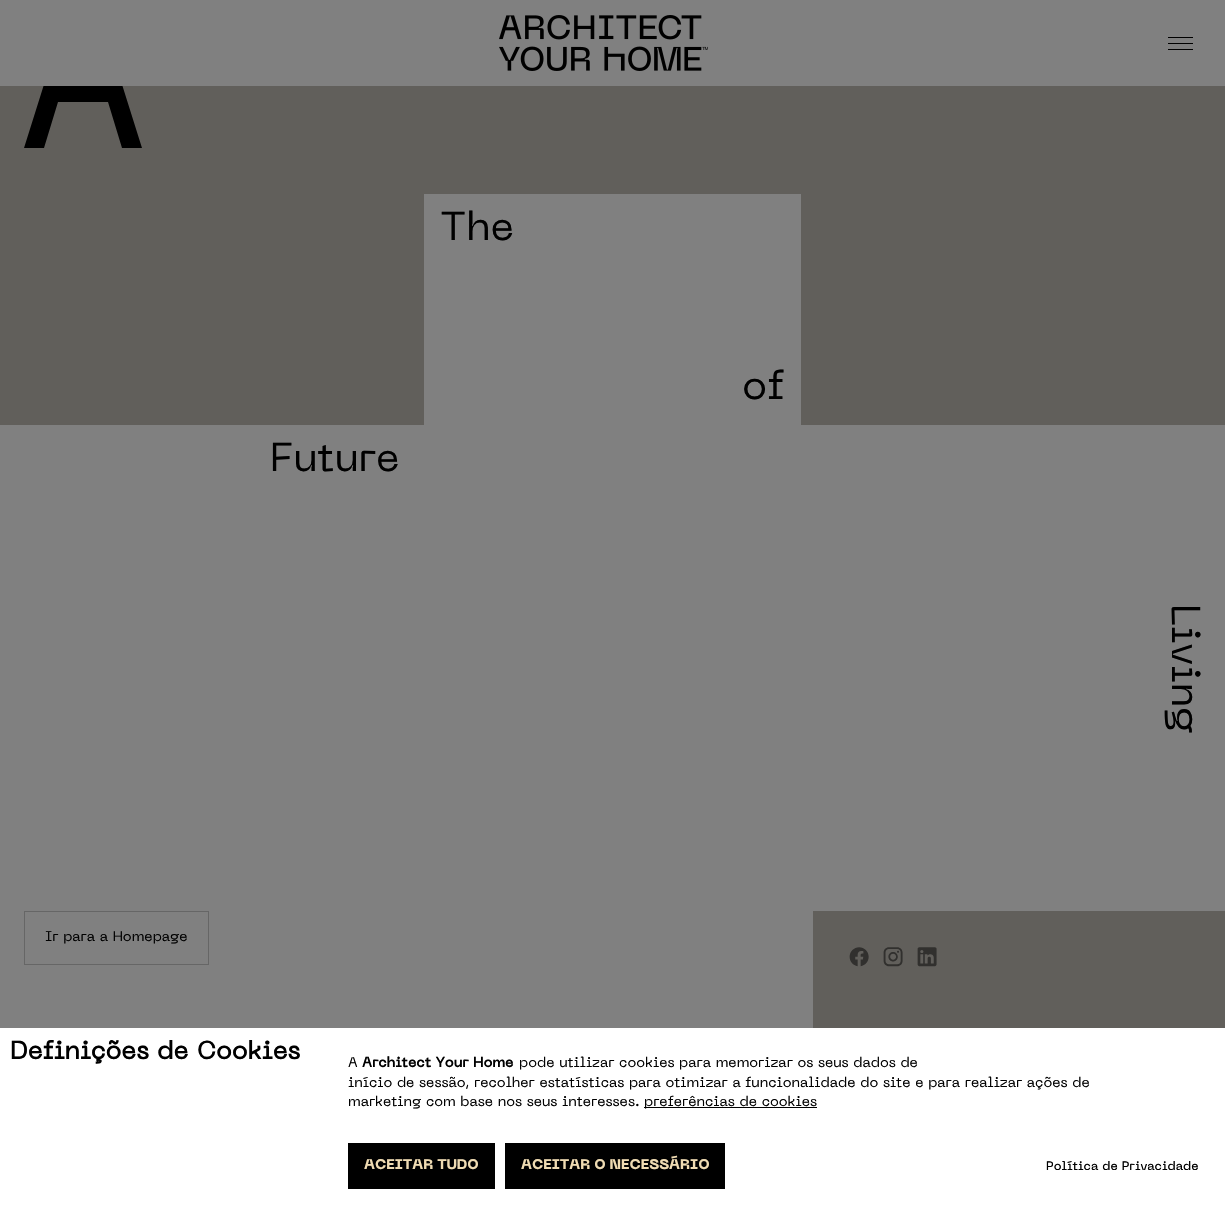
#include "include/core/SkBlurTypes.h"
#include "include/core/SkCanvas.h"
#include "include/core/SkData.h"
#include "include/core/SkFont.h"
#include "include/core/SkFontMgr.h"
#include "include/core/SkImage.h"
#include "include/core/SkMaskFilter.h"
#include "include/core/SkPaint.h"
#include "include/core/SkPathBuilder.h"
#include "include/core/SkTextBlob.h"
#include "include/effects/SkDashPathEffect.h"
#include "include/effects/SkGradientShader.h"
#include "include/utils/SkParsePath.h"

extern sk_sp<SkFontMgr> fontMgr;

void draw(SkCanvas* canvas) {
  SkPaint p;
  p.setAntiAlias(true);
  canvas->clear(SkColorSetRGB(128, 128, 128));
  p.setColor(SkColorSetRGB(97, 95, 91));
  canvas->drawRect(SkRect::MakeLTRB(0, 86, 1225, 425), p);
  p.setColor(SK_ColorBLACK);
  canvas->drawPath(SkPathBuilder().moveTo(63, 86).lineTo(81, 29).lineTo(86, 29).lineTo(103, 86).close().moveTo(103, 24).lineTo(63, 24).lineTo(24, 148).lineTo(44, 148).lineTo(58, 102).lineTo(108, 102).lineTo(122, 148).lineTo(142, 148).close().detach(), p);
  p.setColor(SkColorSetRGB(128, 128, 128));
  canvas->drawRect(SkRect::MakeLTRB(43, 24, 123, 86), p);
  canvas->drawImageRect(SkImages::DeferredFromEncodedData(SkData::MakeFromFileName("images/1.png")), SkRect::MakeLTRB(499, 15, 708, 71), SkSamplingOptions());
  p.setColor(SK_ColorBLACK);
  canvas->drawRect(SkRect::MakeLTRB(1168, 37, 1193, 38), p);
  canvas->drawRect(SkRect::MakeLTRB(1168, 43, 1193, 44), p);
  canvas->drawRect(SkRect::MakeLTRB(1168, 49, 1193, 50), p);
  p.setColor(SkColorSetRGB(128, 128, 128));
  canvas->drawRect(SkRect::MakeLTRB(424, 194, 801, 425), p);
  p.setStyle(SkPaint::kStroke_Style);
  p.setStrokeWidth(1);
  p.setColor(SkColorSetRGB(102, 102, 102));
  canvas->drawRect(SkRect::MakeLTRB(24.5f, 911.5f, 208.5f, 964.5f), p);
  p.setStyle(SkPaint::kFill_Style);
  p.setColor(SkColorSetRGB(97, 95, 91));
  canvas->drawRect(SkRect::MakeLTRB(813, 911, 1225, 1028), p);
  canvas->drawImageRect(SkImages::DeferredFromEncodedData(SkData::MakeFromFileName("images/2.png")), SkRect::MakeLTRB(849, 947, 869, 967), SkSamplingOptions());
  canvas->drawImageRect(SkImages::DeferredFromEncodedData(SkData::MakeFromFileName("images/3.png")), SkRect::MakeLTRB(883, 947, 903, 967), SkSamplingOptions());
  canvas->drawImageRect(SkImages::DeferredFromEncodedData(SkData::MakeFromFileName("images/4.png")), SkRect::MakeLTRB(917, 947, 937, 967), SkSamplingOptions());
  p.setColor(SK_ColorWHITE);
  canvas->drawRect(SkRect::MakeLTRB(0, 1028, 1225, 1215), p);
  p.setColor(SK_ColorBLACK);
  canvas->drawRect(SkRect::MakeLTRB(644, 1107, 817, 1108), p);
  canvas->drawRect(SkRect::MakeLTRB(348, 1143, 495, 1189), p);
  canvas->drawRect(SkRect::MakeLTRB(505, 1143, 725, 1189), p);
  SkFont font1(fontMgr->matchFamilyStyle("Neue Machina", SkFontStyle::Normal()), 40);
  font1.setSubpixel(true);
  canvas->drawString("The", 440, 240, font1, p);
  canvas->drawString("of", 742, 399, font1, p);
  canvas->drawString("Future", 270, 471, font1, p);
  canvas->save();
  canvas->rotate(90, 1172, 604);
  canvas->drawString("Living", 1172, 604, font1, p);
  canvas->restore();
  SkFont font2(fontMgr->matchFamilyStyle("Neue Machina", SkFontStyle::Normal()), 14);
  font2.setSubpixel(true);
  canvas->drawString("Ir para a Homepage", 45, 941, font2, p);
  SkFont font3(fontMgr->matchFamilyStyle("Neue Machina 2", SkFontStyle::Bold()), 25);
  font3.setSubpixel(true);
  canvas->drawString("Definições de Cookies", 10, 1059, font3, p);
  canvas->drawString("A", 348, 1067, font2, p);
  SkFont font4(fontMgr->matchFamilyStyle("Neue Machina", SkFontStyle::Bold()), 14);
  font4.setSubpixel(true);
  canvas->drawString("Architect Your Home", 362, 1067, font4, p);
  canvas->drawString("pode utilizar cookies para memorizar os seus dados de", 519, 1067, font2, p);
  canvas->drawString("início de sessão, recolher estatísticas para otimizar a funcionalidade do site e para realizar ações de", 348, 1087, font2, p);
  canvas->drawString("marketing com base nos seus interesses.", 348, 1106, font2, p);
  canvas->drawString("preferências de cookies", 644, 1106, font2, p);
  SkFont font5(fontMgr->matchFamilyStyle("Neue Machina", SkFontStyle(800, SkFontStyle::kNormal_Width, SkFontStyle::kUpright_Slant)), 14);
  font5.setSubpixel(true);
  p.setColor(SkColorSetRGB(239, 219, 178));
  canvas->drawString("ACEITAR TUDO", 364, 1169, font5, p);
  canvas->drawString("ACEITAR O NECESSÁRIO", 521, 1169, font5, p);
  SkFont font6(fontMgr->matchFamilyStyle("Neue Machina", SkFontStyle(500, SkFontStyle::kNormal_Width, SkFontStyle::kUpright_Slant)), 12.25f);
  font6.setSubpixel(true);
  p.setColor(SK_ColorBLACK);
  canvas->drawString("Política de Privacidade", 1046, 1170, font6, p);
}
